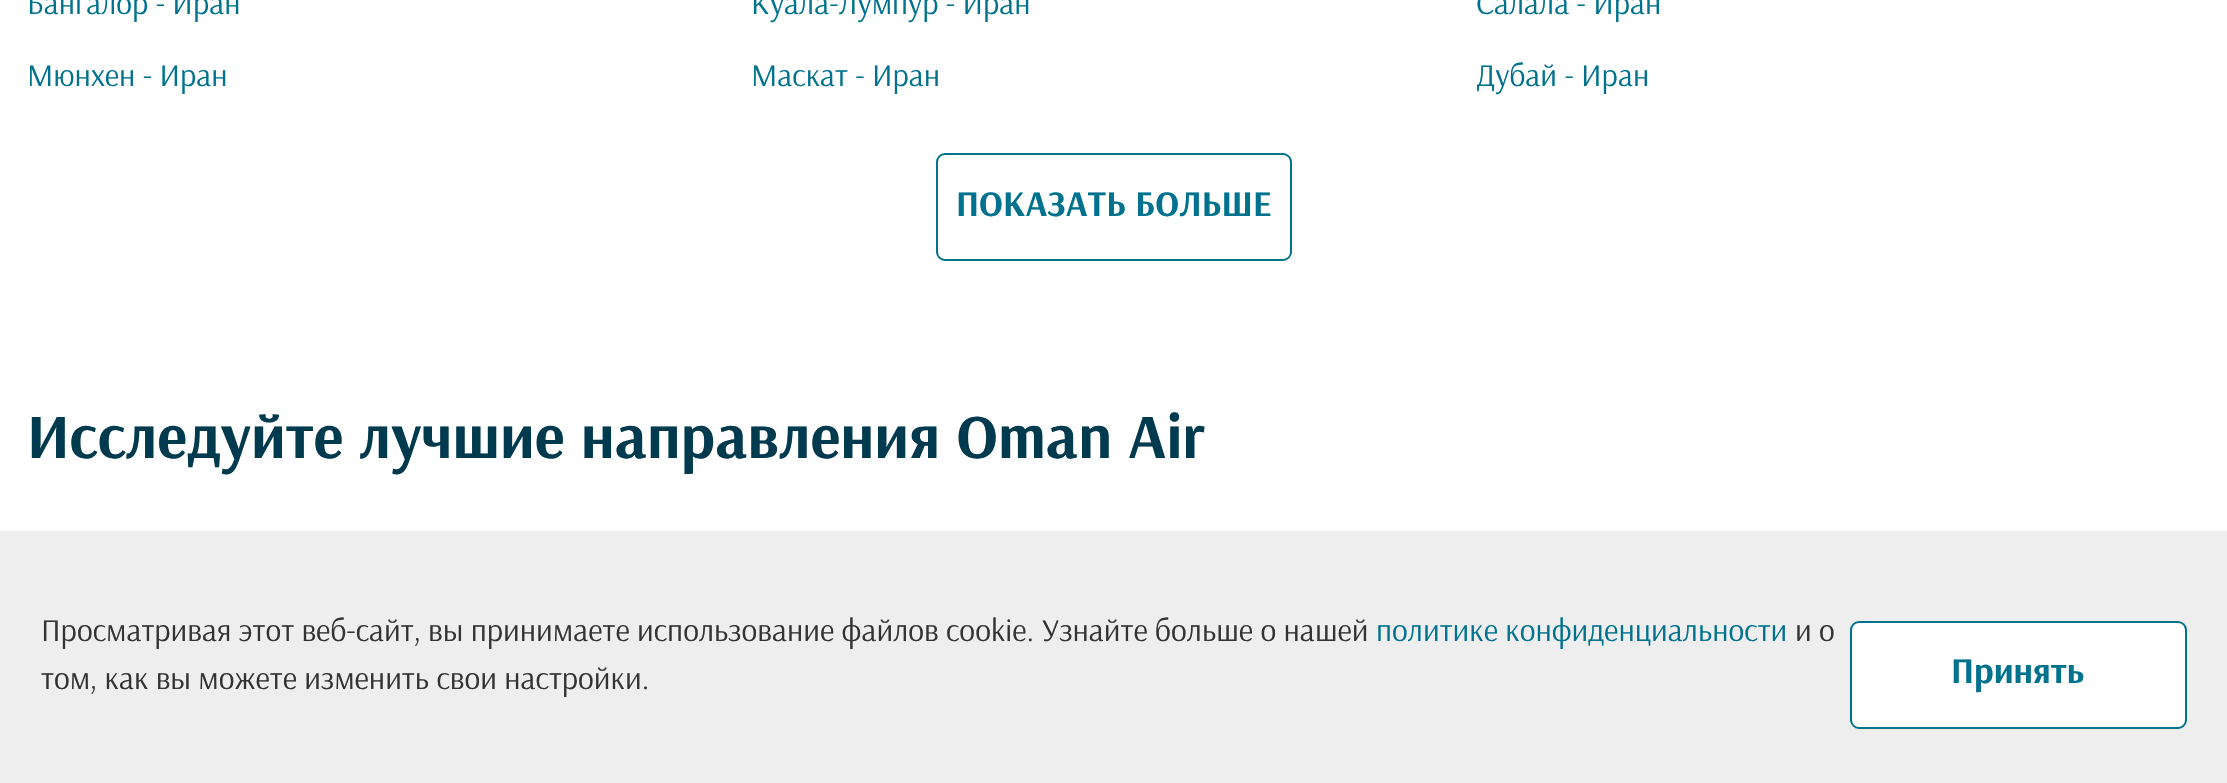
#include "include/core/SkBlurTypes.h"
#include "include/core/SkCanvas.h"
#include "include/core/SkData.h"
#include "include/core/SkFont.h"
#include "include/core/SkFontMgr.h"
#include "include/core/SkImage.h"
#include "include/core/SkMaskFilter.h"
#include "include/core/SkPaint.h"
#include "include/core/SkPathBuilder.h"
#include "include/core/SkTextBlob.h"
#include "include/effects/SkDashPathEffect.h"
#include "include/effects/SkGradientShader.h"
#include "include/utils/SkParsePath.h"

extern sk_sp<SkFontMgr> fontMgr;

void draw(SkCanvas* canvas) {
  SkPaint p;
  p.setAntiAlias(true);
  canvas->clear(SK_ColorWHITE);
  p.setStyle(SkPaint::kStroke_Style);
  p.setStrokeWidth(2);
  p.setColor(SkColorSetRGB(0, 114, 142));
  canvas->drawRoundRect(SkRect::MakeLTRB(937, 154, 1291, 260), 8, 8, p);
  p.setStyle(SkPaint::kFill_Style);
  p.setColor(SkColorSetRGB(238, 238, 238));
  canvas->drawRect(SkRect::MakeLTRB(0, 531, 2227, 783), p);
  p.setColor(SK_ColorWHITE);
  canvas->drawRoundRect(SkRect::MakeLTRB(1851, 622, 2186, 728), 8, 8, p);
  p.setStyle(SkPaint::kStroke_Style);
  p.setColor(SkColorSetRGB(0, 114, 142));
  canvas->drawRoundRect(SkRect::MakeLTRB(1851, 622, 2186, 728), 8, 8, p);
  SkFont font1(fontMgr->matchFamilyStyle("Arsenal", SkFontStyle::Normal()), 31.5f);
  font1.setSubpixel(true);
  p.setStyle(SkPaint::kFill_Style);
  canvas->drawString("Бангалор - Иран", 27, 14, font1, p);
  canvas->drawString("Куала-Лумпур - Иран", 751, 14, font1, p);
  canvas->drawString("Салала - Иран", 1476, 14, font1, p);
  canvas->drawString("Мюнхен - Иран", 27, 86, font1, p);
  canvas->drawString("Маскат - Иран", 751, 86, font1, p);
  canvas->drawString("Дубай - Иран", 1476, 86, font1, p);
  SkFont font2(fontMgr->matchFamilyStyle("Arsenal", SkFontStyle::Bold()), 36);
  font2.setSubpixel(true);
  canvas->drawString("ПОКАЗАТЬ БОЛЬШЕ", 956, 216, font2, p);
  SkFont font3(fontMgr->matchFamilyStyle("Arsenal", SkFontStyle::Bold()), 63);
  font3.setSubpixel(true);
  p.setColor(SkColorSetRGB(0, 58, 78));
  canvas->drawString("Исследуйте лучшие направления Oman Air", 27, 458, font3, p);
  p.setColor(SkColorSetRGB(51, 51, 51));
  canvas->drawString("Просматривая этот веб-сайт, вы принимаете использование файлов cookie. Узнайте больше о нашей", 41, 641, font1, p);
  p.setColor(SkColorSetRGB(0, 114, 142));
  canvas->drawString("политике конфиденциальности", 1376, 641, font1, p);
  p.setColor(SkColorSetRGB(51, 51, 51));
  canvas->drawString("и о", 1795, 641, font1, p);
  canvas->drawString("том, как вы можете изменить свои настройки.", 41, 689, font1, p);
  p.setColor(SkColorSetRGB(0, 114, 142));
  canvas->drawString("Принять", 1951, 683, font2, p);
}
